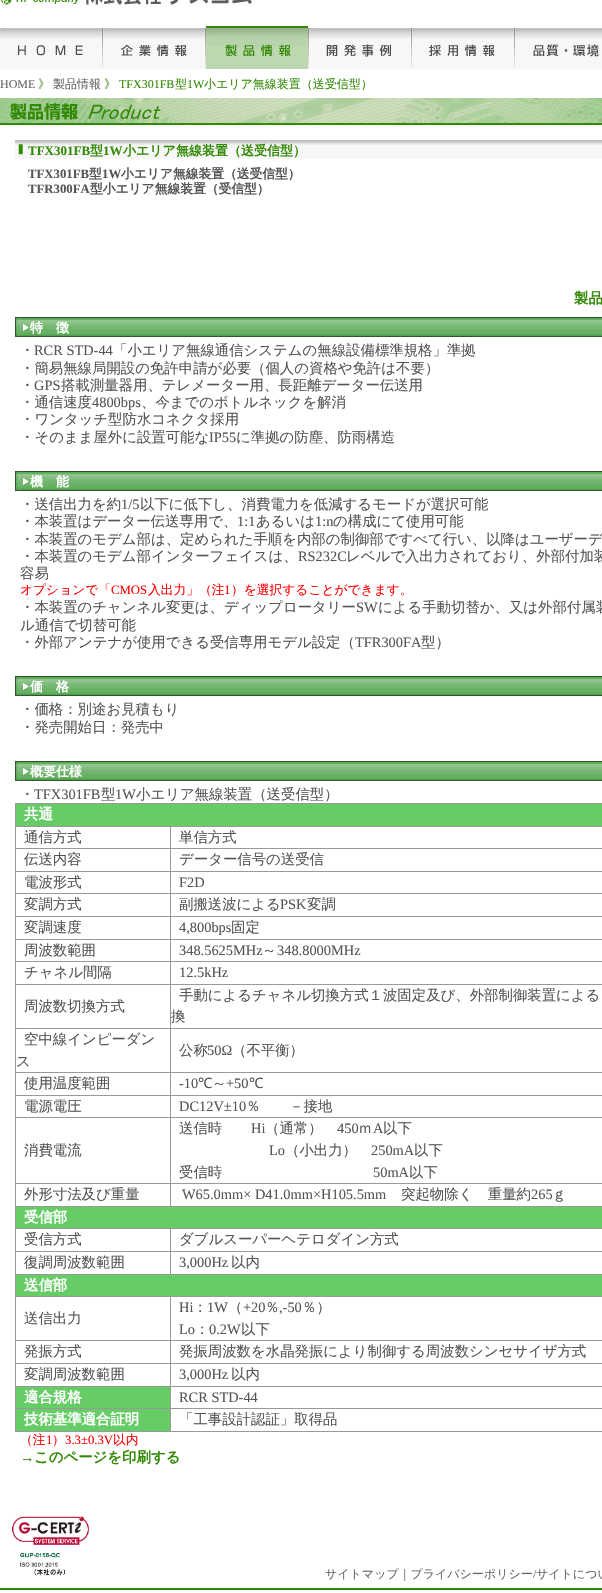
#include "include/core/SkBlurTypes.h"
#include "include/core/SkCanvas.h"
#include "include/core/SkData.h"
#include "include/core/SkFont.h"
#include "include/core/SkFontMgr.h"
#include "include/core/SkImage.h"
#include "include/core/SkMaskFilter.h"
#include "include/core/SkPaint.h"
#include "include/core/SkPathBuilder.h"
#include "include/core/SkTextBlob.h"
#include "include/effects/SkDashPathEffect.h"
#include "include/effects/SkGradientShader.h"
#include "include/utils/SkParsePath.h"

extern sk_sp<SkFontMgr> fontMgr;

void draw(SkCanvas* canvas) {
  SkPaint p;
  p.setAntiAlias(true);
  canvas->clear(SK_ColorWHITE);
  canvas->drawImageRect(SkImages::DeferredFromEncodedData(SkData::MakeFromFileName("images/1.png")), SkRect::MakeLTRB(0, 0, 252, 5), SkSamplingOptions());
  canvas->drawImageRect(SkImages::DeferredFromEncodedData(SkData::MakeFromFileName("images/2.png")), SkRect::MakeLTRB(0, 28, 103, 69), SkSamplingOptions());
  canvas->drawImageRect(SkImages::DeferredFromEncodedData(SkData::MakeFromFileName("images/3.png")), SkRect::MakeLTRB(103, 28, 206, 69), SkSamplingOptions());
  canvas->drawImageRect(SkImages::DeferredFromEncodedData(SkData::MakeFromFileName("images/4.png")), SkRect::MakeLTRB(206, 26, 309, 69), SkSamplingOptions());
  canvas->drawImageRect(SkImages::DeferredFromEncodedData(SkData::MakeFromFileName("images/5.png")), SkRect::MakeLTRB(309, 28, 412, 69), SkSamplingOptions());
  canvas->drawImageRect(SkImages::DeferredFromEncodedData(SkData::MakeFromFileName("images/6.png")), SkRect::MakeLTRB(412, 28, 515, 69), SkSamplingOptions());
  canvas->drawImageRect(SkImages::DeferredFromEncodedData(SkData::MakeFromFileName("images/7.png")), SkRect::MakeLTRB(515, 28, 602, 69), SkSamplingOptions());
  canvas->drawImageRect(SkImages::DeferredFromEncodedData(SkData::MakeFromFileName("images/8.png")), SkRect::MakeLTRB(0, 98, 602, 125), SkSamplingOptions());
  canvas->drawImageRect(SkImages::DeferredFromEncodedData(SkData::MakeFromFileName("images/9.png")), SkRect::MakeLTRB(15, 140, 602, 159), SkSamplingOptions());
  canvas->drawImageRect(SkImages::DeferredFromEncodedData(SkData::MakeFromFileName("images/10.png")), SkRect::MakeLTRB(15, 317, 602, 337), SkSamplingOptions());
  canvas->drawImageRect(SkImages::DeferredFromEncodedData(SkData::MakeFromFileName("images/10.png")), SkRect::MakeLTRB(15, 471, 602, 491), SkSamplingOptions());
  canvas->drawImageRect(SkImages::DeferredFromEncodedData(SkData::MakeFromFileName("images/10.png")), SkRect::MakeLTRB(15, 676, 602, 696), SkSamplingOptions());
  canvas->drawImageRect(SkImages::DeferredFromEncodedData(SkData::MakeFromFileName("images/10.png")), SkRect::MakeLTRB(15, 761, 602, 781), SkSamplingOptions());
  p.setColor(SkColorSetRGB(153, 153, 153));
  canvas->drawRect(SkRect::MakeLTRB(15, 1431, 602, 1432), p);
  canvas->drawRect(SkRect::MakeLTRB(15, 803, 602, 804), p);
  canvas->drawRect(SkRect::MakeLTRB(15, 803, 16, 826), p);
  p.setColor(SkColorSetRGB(102, 204, 102));
  canvas->drawRect(SkRect::MakeLTRB(16, 804, 602, 826), p);
  p.setColor(SkColorSetRGB(153, 153, 153));
  canvas->drawRect(SkRect::MakeLTRB(15, 826, 602, 827), p);
  canvas->drawRect(SkRect::MakeLTRB(15, 826, 16, 848), p);
  canvas->drawRect(SkRect::MakeLTRB(170, 826, 171, 848), p);
  canvas->drawRect(SkRect::MakeLTRB(15, 848, 602, 849), p);
  canvas->drawRect(SkRect::MakeLTRB(15, 848, 16, 871), p);
  canvas->drawRect(SkRect::MakeLTRB(170, 848, 171, 871), p);
  canvas->drawRect(SkRect::MakeLTRB(15, 871, 602, 872), p);
  canvas->drawRect(SkRect::MakeLTRB(15, 871, 16, 893), p);
  canvas->drawRect(SkRect::MakeLTRB(170, 871, 171, 893), p);
  canvas->drawRect(SkRect::MakeLTRB(15, 893, 602, 894), p);
  canvas->drawRect(SkRect::MakeLTRB(15, 893, 16, 916), p);
  canvas->drawRect(SkRect::MakeLTRB(170, 893, 171, 916), p);
  canvas->drawRect(SkRect::MakeLTRB(15, 916, 602, 917), p);
  canvas->drawRect(SkRect::MakeLTRB(15, 916, 16, 939), p);
  canvas->drawRect(SkRect::MakeLTRB(170, 916, 171, 939), p);
  canvas->drawRect(SkRect::MakeLTRB(15, 939, 602, 940), p);
  canvas->drawRect(SkRect::MakeLTRB(15, 939, 16, 961), p);
  canvas->drawRect(SkRect::MakeLTRB(170, 939, 171, 961), p);
  canvas->drawRect(SkRect::MakeLTRB(15, 961, 602, 962), p);
  canvas->drawRect(SkRect::MakeLTRB(15, 961, 16, 984), p);
  canvas->drawRect(SkRect::MakeLTRB(170, 961, 171, 984), p);
  canvas->drawRect(SkRect::MakeLTRB(15, 984, 602, 985), p);
  canvas->drawRect(SkRect::MakeLTRB(15, 984, 16, 1028), p);
  canvas->drawRect(SkRect::MakeLTRB(170, 984, 171, 1028), p);
  canvas->drawRect(SkRect::MakeLTRB(15, 1028, 602, 1029), p);
  canvas->drawRect(SkRect::MakeLTRB(15, 1028, 16, 1072), p);
  canvas->drawRect(SkRect::MakeLTRB(170, 1028, 171, 1072), p);
  canvas->drawRect(SkRect::MakeLTRB(15, 1072, 602, 1073), p);
  canvas->drawRect(SkRect::MakeLTRB(15, 1072, 16, 1095), p);
  canvas->drawRect(SkRect::MakeLTRB(170, 1072, 171, 1095), p);
  canvas->drawRect(SkRect::MakeLTRB(15, 1095, 602, 1096), p);
  canvas->drawRect(SkRect::MakeLTRB(15, 1095, 16, 1117), p);
  canvas->drawRect(SkRect::MakeLTRB(170, 1095, 171, 1117), p);
  canvas->drawRect(SkRect::MakeLTRB(15, 1117, 602, 1118), p);
  canvas->drawRect(SkRect::MakeLTRB(15, 1117, 16, 1183), p);
  canvas->drawRect(SkRect::MakeLTRB(170, 1117, 171, 1183), p);
  canvas->drawRect(SkRect::MakeLTRB(15, 1183, 602, 1184), p);
  canvas->drawRect(SkRect::MakeLTRB(15, 1183, 16, 1206), p);
  canvas->drawRect(SkRect::MakeLTRB(170, 1183, 171, 1206), p);
  canvas->drawRect(SkRect::MakeLTRB(15, 1206, 602, 1207), p);
  canvas->drawRect(SkRect::MakeLTRB(15, 1206, 16, 1228), p);
  p.setColor(SkColorSetRGB(102, 204, 102));
  canvas->drawRect(SkRect::MakeLTRB(16, 1207, 602, 1228), p);
  p.setColor(SkColorSetRGB(153, 153, 153));
  canvas->drawRect(SkRect::MakeLTRB(15, 1228, 602, 1229), p);
  canvas->drawRect(SkRect::MakeLTRB(15, 1228, 16, 1251), p);
  canvas->drawRect(SkRect::MakeLTRB(170, 1228, 171, 1251), p);
  canvas->drawRect(SkRect::MakeLTRB(15, 1251, 602, 1252), p);
  canvas->drawRect(SkRect::MakeLTRB(15, 1251, 16, 1274), p);
  canvas->drawRect(SkRect::MakeLTRB(170, 1251, 171, 1274), p);
  canvas->drawRect(SkRect::MakeLTRB(15, 1274, 602, 1275), p);
  canvas->drawRect(SkRect::MakeLTRB(15, 1274, 16, 1296), p);
  p.setColor(SkColorSetRGB(102, 204, 102));
  canvas->drawRect(SkRect::MakeLTRB(16, 1275, 602, 1296), p);
  p.setColor(SkColorSetRGB(153, 153, 153));
  canvas->drawRect(SkRect::MakeLTRB(15, 1296, 602, 1297), p);
  canvas->drawRect(SkRect::MakeLTRB(15, 1296, 16, 1340), p);
  canvas->drawRect(SkRect::MakeLTRB(170, 1296, 171, 1340), p);
  canvas->drawRect(SkRect::MakeLTRB(15, 1340, 602, 1341), p);
  canvas->drawRect(SkRect::MakeLTRB(15, 1340, 16, 1363), p);
  canvas->drawRect(SkRect::MakeLTRB(170, 1340, 171, 1363), p);
  canvas->drawRect(SkRect::MakeLTRB(15, 1363, 602, 1364), p);
  canvas->drawRect(SkRect::MakeLTRB(15, 1363, 16, 1386), p);
  canvas->drawRect(SkRect::MakeLTRB(170, 1363, 171, 1386), p);
  canvas->drawRect(SkRect::MakeLTRB(15, 1386, 602, 1387), p);
  canvas->drawRect(SkRect::MakeLTRB(15, 1386, 16, 1408), p);
  p.setColor(SkColorSetRGB(102, 204, 102));
  canvas->drawRect(SkRect::MakeLTRB(16, 1387, 170, 1408), p);
  p.setColor(SkColorSetRGB(153, 153, 153));
  canvas->drawRect(SkRect::MakeLTRB(170, 1386, 171, 1408), p);
  canvas->drawRect(SkRect::MakeLTRB(15, 1408, 602, 1409), p);
  canvas->drawRect(SkRect::MakeLTRB(15, 1408, 16, 1431), p);
  p.setColor(SkColorSetRGB(102, 204, 102));
  canvas->drawRect(SkRect::MakeLTRB(16, 1409, 170, 1431), p);
  p.setColor(SkColorSetRGB(153, 153, 153));
  canvas->drawRect(SkRect::MakeLTRB(170, 1408, 171, 1431), p);
  canvas->drawImageRect(SkImages::DeferredFromEncodedData(SkData::MakeFromFileName("images/11.png")), SkRect::MakeLTRB(11, 1516, 90, 1576), SkSamplingOptions());
  p.setColor(SkColorSetRGB(51, 138, 7));
  canvas->drawRect(SkRect::MakeLTRB(0, 1588, 602, 1590), p);
  SkFont font1(fontMgr->matchFamilyStyle("Liberation Serif", SkFontStyle::Normal()), 12);
  font1.setSubpixel(true);
  p.setColor(SkColorSetRGB(102, 102, 102));
  canvas->drawString("HOME", 0, 88, font1, p);
  SkFont font2(fontMgr->matchFamilyStyle("WenQuanYi Zen Hei", SkFontStyle(500, SkFontStyle::kNormal_Width, SkFontStyle::kUpright_Slant)), 12);
  font2.setSubpixel(true);
  p.setColor(SkColorSetRGB(51, 138, 7));
  canvas->drawString("》", 38, 88, font2, p);
  p.setColor(SkColorSetRGB(102, 102, 102));
  canvas->drawString("製品情報", 53, 88, font2, p);
  p.setColor(SkColorSetRGB(51, 138, 7));
  canvas->drawString("》", 104, 88, font2, p);
  canvas->drawString("TFX301FB", 119, 88, font1, p);
  canvas->drawString("型", 175, 88, font2, p);
  canvas->drawString("1W", 187, 88, font1, p);
  canvas->drawString("小エリア無線装置（送受信型）", 204, 88, font2, p);
  SkFont font3(fontMgr->matchFamilyStyle("Liberation Serif", SkFontStyle::Bold()), 13);
  font3.setSubpixel(true);
  canvas->drawString("TFX301FB", 28, 155, font3, p);
  SkFont font4(fontMgr->matchFamilyStyle("WenQuanYi Zen Hei", SkFontStyle::Bold()), 13);
  font4.setSubpixel(true);
  canvas->drawString("型", 90, 155, font4, p);
  canvas->drawString("1W", 103, 155, font3, p);
  canvas->drawString("小エリア無線装置（送受信型）", 123, 155, font4, p);
  SkFont font5(fontMgr->matchFamilyStyle("Liberation Serif", SkFontStyle::Bold()), 12.75f);
  font5.setSubpixel(true);
  p.setColor(SkColorSetRGB(85, 85, 85));
  canvas->drawString("TFX301FB", 28, 178, font5, p);
  SkFont font6(fontMgr->matchFamilyStyle("WenQuanYi Zen Hei", SkFontStyle::Bold()), 12.75f);
  font6.setSubpixel(true);
  canvas->drawString("型", 89, 178, font6, p);
  canvas->drawString("1W", 102, 178, font5, p);
  canvas->drawString("小エリア無線装置（送受信型）", 121, 178, font6, p);
  canvas->drawString("TFR300FA", 28, 193, font5, p);
  canvas->drawString("型小エリア無線装置（受信型）", 90, 193, font6, p);
  SkFont font7(fontMgr->matchFamilyStyle("WenQuanYi Zen Hei", SkFontStyle::Bold()), 14.4f);
  font7.setSubpixel(true);
  p.setColor(SkColorSetRGB(51, 138, 7));
  canvas->drawString("製品", 574, 303, font7, p);
  p.setColor(SK_ColorWHITE);
  canvas->drawString("特　徴", 30, 332, font4, p);
  SkFont font8(fontMgr->matchFamilyStyle("WenQuanYi Zen Hei", SkFontStyle(500, SkFontStyle::kNormal_Width, SkFontStyle::kUpright_Slant)), 14.4f);
  font8.setSubpixel(true);
  p.setColor(SkColorSetRGB(85, 85, 85));
  canvas->drawString("・", 20, 355, font8, p);
  SkFont font9(fontMgr->matchFamilyStyle("Liberation Serif", SkFontStyle::Normal()), 14.4f);
  font9.setSubpixel(true);
  canvas->drawString("RCR STD-44", 34, 355, font9, p);
  canvas->drawString("「小エリア無線通信システムの無線設備標準規格」準拠", 113, 355, font8, p);
  canvas->drawString("・簡易無線局開設の免許申請が必要（個人の資格や免許は不要）", 20, 373, font8, p);
  canvas->drawString("・", 20, 390, font8, p);
  canvas->drawString("GPS", 34, 390, font9, p);
  canvas->drawString("搭載測量器用、テレメーター用、長距離データー伝送用", 61, 390, font8, p);
  canvas->drawString("・通信速度", 20, 407, font8, p);
  canvas->drawString("4800bps", 92, 407, font9, p);
  canvas->drawString("、今までのボトルネックを解消", 141, 407, font8, p);
  canvas->drawString("・ワンタッチ型防水コネクタ採用", 20, 424, font8, p);
  canvas->drawString("・そのまま屋外に設置可能な", 20, 442, font8, p);
  canvas->drawString("IP55", 209, 442, font9, p);
  canvas->drawString("に準拠の防塵、防雨構造", 236, 442, font8, p);
  p.setColor(SK_ColorWHITE);
  canvas->drawString("機　能", 30, 486, font4, p);
  p.setColor(SkColorSetRGB(85, 85, 85));
  canvas->drawString("・送信出力を約", 20, 509, font8, p);
  canvas->drawString("1/5", 121, 509, font9, p);
  canvas->drawString("以下に低下し、消費電力を低減するモードが選択可能", 140, 509, font8, p);
  canvas->drawString("・本装置はデーター伝送専用で、", 20, 526, font8, p);
  canvas->drawString("1:1", 237, 526, font9, p);
  canvas->drawString("あるいは", 256, 526, font8, p);
  canvas->drawString("1:n", 315, 526, font9, p);
  canvas->drawString("の構成にて使用可能", 333, 526, font8, p);
  canvas->drawString("・本装置のモデム部は、定められた手順を内部の制御部ですべて行い、以降はユーザーデ", 20, 544, font8, p);
  canvas->drawString("・本装置のモデム部インターフェイスは、", 20, 561, font8, p);
  canvas->drawString("RS232C", 298, 561, font9, p);
  canvas->drawString("レベルで入出力されており、外部付加装", 346, 561, font8, p);
  canvas->drawString("容易", 20, 578, font8, p);
  SkFont font10(fontMgr->matchFamilyStyle("WenQuanYi Zen Hei", SkFontStyle(500, SkFontStyle::kNormal_Width, SkFontStyle::kUpright_Slant)), 12.75f);
  font10.setSubpixel(true);
  p.setColor(SkColorSetRGB(255, 0, 0));
  canvas->drawString("オプションで「", 20, 594, font10, p);
  SkFont font11(fontMgr->matchFamilyStyle("Liberation Serif", SkFontStyle::Normal()), 12.75f);
  font11.setSubpixel(true);
  canvas->drawString("CMOS", 111, 594, font11, p);
  canvas->drawString("入出力」（注", 148, 594, font10, p);
  canvas->drawString("1", 224, 594, font11, p);
  canvas->drawString("）を選択することができます。", 231, 594, font10, p);
  p.setColor(SkColorSetRGB(85, 85, 85));
  canvas->drawString("・本装置のチャンネル変更は、ディップロータリー", 20, 612, font8, p);
  canvas->drawString("SW", 356, 612, font9, p);
  canvas->drawString("による手動切替か、又は外部付属装", 378, 612, font8, p);
  canvas->drawString("ル通信で切替可能", 20, 630, font8, p);
  canvas->drawString("・外部アンテナが使用できる受信専用モデル設定（", 20, 647, font8, p);
  canvas->drawString("TFR300FA", 355, 647, font9, p);
  canvas->drawString("型）", 421, 647, font8, p);
  p.setColor(SK_ColorWHITE);
  canvas->drawString("価　格", 30, 691, font4, p);
  p.setColor(SkColorSetRGB(85, 85, 85));
  canvas->drawString("・価格：別途お見積もり", 20, 714, font8, p);
  canvas->drawString("・発売開始日：発売中", 20, 732, font8, p);
  p.setColor(SK_ColorWHITE);
  canvas->drawString("概要仕様", 30, 776, font4, p);
  p.setColor(SkColorSetRGB(85, 85, 85));
  canvas->drawString("・", 20, 799, font8, p);
  canvas->drawString("TFX301FB", 34, 799, font9, p);
  canvas->drawString("型", 101, 799, font8, p);
  canvas->drawString("1W", 115, 799, font9, p);
  canvas->drawString("小エリア無線装置（送受信型）", 136, 799, font8, p);
  p.setColor(SK_ColorWHITE);
  canvas->drawString("共通", 24, 819, font7, p);
  p.setColor(SkColorSetRGB(85, 85, 85));
  canvas->drawString("通信方式", 24, 842, font8, p);
  canvas->drawString("単信方式", 179, 842, font8, p);
  canvas->drawString("伝送内容", 24, 864, font8, p);
  canvas->drawString("データー信号の送受信", 179, 864, font8, p);
  canvas->drawString("電波形式", 24, 887, font8, p);
  canvas->drawString("F2D", 179, 887, font9, p);
  canvas->drawString("変調方式", 24, 909, font8, p);
  canvas->drawString("副搬送波による", 179, 909, font8, p);
  canvas->drawString("PSK", 280, 909, font9, p);
  canvas->drawString("変調", 307, 909, font8, p);
  canvas->drawString("変調速度", 24, 932, font8, p);
  canvas->drawString("4,800bps", 179, 932, font9, p);
  canvas->drawString("固定", 231, 932, font8, p);
  canvas->drawString("周波数範囲", 24, 955, font8, p);
  canvas->drawString("348.5625MHz", 179, 955, font9, p);
  canvas->drawString("～", 262, 955, font8, p);
  canvas->drawString("348.8000MHz", 277, 955, font9, p);
  canvas->drawString("チャネル間隔", 24, 977, font8, p);
  canvas->drawString("12.5kHz", 179, 977, font9, p);
  canvas->drawString("周波数切換方式", 24, 1011, font8, p);
  canvas->drawString("手動によるチャネル切換方式１波固定及び、外部制御装置による", 179, 1000, font8, p);
  canvas->drawString("換", 171, 1021, font8, p);
  canvas->drawString("空中線インピーダン", 24, 1044, font8, p);
  canvas->drawString("ス", 16, 1066, font8, p);
  canvas->drawString("公称", 179, 1055, font8, p);
  canvas->drawString("50Ω", 207, 1055, font9, p);
  canvas->drawString("（不平衡）", 232, 1055, font8, p);
  canvas->drawString("使用温度範囲", 24, 1088, font8, p);
  canvas->drawString("-10", 179, 1088, font9, p);
  SkFont font12(fontMgr->matchFamilyStyle("Noto Sans", SkFontStyle::Normal()), 14.4f);
  font12.setSubpixel(true);
  canvas->drawString("℃", 198, 1088, font12, p);
  canvas->drawString("～", 212, 1088, font8, p);
  canvas->drawString("+50", 226, 1088, font9, p);
  canvas->drawString("℃", 249, 1088, font12, p);
  canvas->drawString("電源電圧", 24, 1111, font8, p);
  canvas->drawString("DC12V±10", 179, 1111, font9, p);
  canvas->drawString("％　　－接地", 246, 1111, font8, p);
  canvas->drawString("消費電流", 24, 1155, font8, p);
  canvas->drawString("送信時", 179, 1133, font8, p);
  canvas->drawString("Hi", 251, 1133, font9, p);
  canvas->drawString("（通常）", 265, 1133, font8, p);
  canvas->drawString("450", 337, 1133, font9, p);
  canvas->drawString("ｍ", 358, 1133, font8, p);
  canvas->drawString("A", 373, 1133, font9, p);
  canvas->drawString("以下", 383, 1133, font8, p);
  canvas->drawString("Lo", 269, 1155, font9, p);
  canvas->drawString("（小出力）", 285, 1155, font8, p);
  canvas->drawString("250mA", 371, 1155, font9, p);
  canvas->drawString("以下", 414, 1155, font8, p);
  canvas->drawString("受信時", 179, 1177, font8, p);
  canvas->drawString("50mA", 373, 1177, font9, p);
  canvas->drawString("以下", 409, 1177, font8, p);
  canvas->drawString("外形寸法及び重量", 24, 1199, font8, p);
  canvas->drawString("W65.0mm× D41.0mm×H105.5mm", 182, 1199, font9, p);
  canvas->drawString("突起物除く　重量約", 401, 1199, font8, p);
  canvas->drawString("265", 531, 1199, font9, p);
  canvas->drawString("ｇ", 552, 1199, font8, p);
  p.setColor(SK_ColorWHITE);
  canvas->drawString("受信部", 24, 1222, font7, p);
  p.setColor(SkColorSetRGB(85, 85, 85));
  canvas->drawString("受信方式", 24, 1244, font8, p);
  canvas->drawString("ダブルスーパーヘテロダイン方式", 179, 1244, font8, p);
  canvas->drawString("復調周波数範囲", 24, 1267, font8, p);
  canvas->drawString("3,000Hz", 179, 1267, font9, p);
  canvas->drawString("以内", 231, 1267, font8, p);
  p.setColor(SK_ColorWHITE);
  canvas->drawString("送信部", 24, 1290, font7, p);
  p.setColor(SkColorSetRGB(85, 85, 85));
  canvas->drawString("送信出力", 24, 1323, font8, p);
  canvas->drawString("Hi", 179, 1312, font9, p);
  canvas->drawString("：", 193, 1312, font8, p);
  canvas->drawString("1W", 207, 1312, font9, p);
  canvas->drawString("（", 228, 1312, font8, p);
  canvas->drawString("+20", 243, 1312, font9, p);
  canvas->drawString("％", 265, 1312, font8, p);
  canvas->drawString(",-50", 279, 1312, font9, p);
  canvas->drawString("％）", 302, 1312, font8, p);
  canvas->drawString("Lo", 179, 1334, font9, p);
  canvas->drawString("：", 195, 1334, font8, p);
  canvas->drawString("0.2W", 209, 1334, font9, p);
  canvas->drawString("以下", 241, 1334, font8, p);
  canvas->drawString("発振方式", 24, 1356, font8, p);
  canvas->drawString("発振周波数を水晶発振により制御する周波数シンセサイザ方式", 179, 1356, font8, p);
  canvas->drawString("変調周波数範囲", 24, 1379, font8, p);
  canvas->drawString("3,000Hz", 179, 1379, font9, p);
  canvas->drawString("以内", 231, 1379, font8, p);
  p.setColor(SK_ColorWHITE);
  canvas->drawString("適合規格", 24, 1402, font7, p);
  p.setColor(SkColorSetRGB(85, 85, 85));
  canvas->drawString("RCR STD-44", 179, 1402, font9, p);
  p.setColor(SK_ColorWHITE);
  canvas->drawString("技術基準適合証明", 24, 1424, font7, p);
  p.setColor(SkColorSetRGB(85, 85, 85));
  canvas->drawString("「工事設計認証」取得品", 179, 1424, font8, p);
  p.setColor(SkColorSetRGB(255, 0, 0));
  canvas->drawString("（注", 20, 1444, font10, p);
  canvas->drawString("1", 46, 1444, font11, p);
  canvas->drawString("）", 52, 1444, font10, p);
  canvas->drawString("3.3±0.3V", 65, 1444, font11, p);
  canvas->drawString("以内", 113, 1444, font10, p);
  SkFont font13(fontMgr->matchFamilyStyle("Liberation Serif", SkFontStyle::Bold()), 14.4f);
  font13.setSubpixel(true);
  p.setColor(SkColorSetRGB(51, 138, 7));
  canvas->drawString("→", 20, 1462, font13, p);
  canvas->drawString("このページを印刷する", 34, 1462, font7, p);
  p.setColor(SkColorSetRGB(102, 102, 102));
  canvas->drawString("サイトマップ｜プライバシーポリシー", 325, 1578, font2, p);
  canvas->drawString("/", 533, 1578, font1, p);
  canvas->drawString("サイトについ", 536, 1578, font2, p);
}
